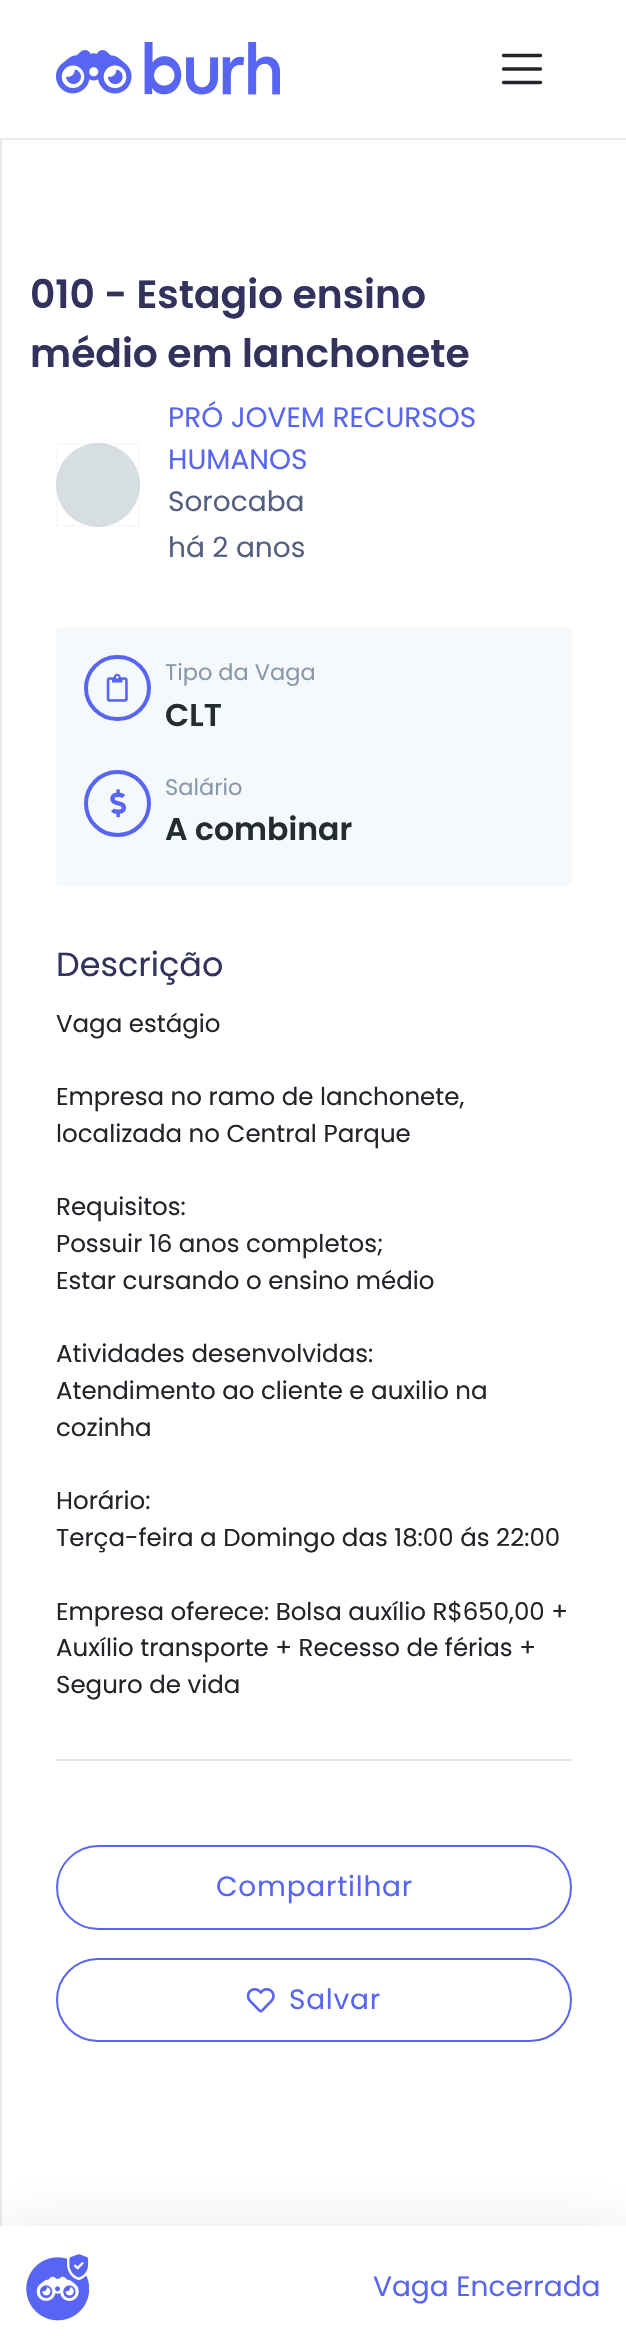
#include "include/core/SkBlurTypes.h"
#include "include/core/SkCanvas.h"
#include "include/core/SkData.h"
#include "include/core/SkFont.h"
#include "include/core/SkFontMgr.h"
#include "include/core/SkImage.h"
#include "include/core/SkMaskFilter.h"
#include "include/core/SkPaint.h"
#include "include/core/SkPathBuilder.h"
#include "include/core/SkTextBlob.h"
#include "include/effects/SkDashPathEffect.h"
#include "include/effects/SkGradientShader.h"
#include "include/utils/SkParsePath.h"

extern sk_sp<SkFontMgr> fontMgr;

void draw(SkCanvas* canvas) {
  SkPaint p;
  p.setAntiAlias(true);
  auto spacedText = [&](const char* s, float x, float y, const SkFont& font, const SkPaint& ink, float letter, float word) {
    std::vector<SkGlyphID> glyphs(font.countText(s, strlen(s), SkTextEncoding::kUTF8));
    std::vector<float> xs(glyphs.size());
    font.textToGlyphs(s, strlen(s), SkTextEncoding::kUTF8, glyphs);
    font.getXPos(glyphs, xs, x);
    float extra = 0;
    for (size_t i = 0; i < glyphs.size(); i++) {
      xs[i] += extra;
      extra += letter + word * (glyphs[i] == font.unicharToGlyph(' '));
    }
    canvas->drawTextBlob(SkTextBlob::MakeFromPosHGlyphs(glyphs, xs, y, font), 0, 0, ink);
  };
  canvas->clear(SK_ColorWHITE);
  p.setColor(SkColorSetRGB(233, 236, 239));
  canvas->drawRect(SkRect::MakeLTRB(0, 138, 626, 140), p);
  canvas->drawImageRect(SkImages::DeferredFromEncodedData(SkData::MakeFromFileName("images/1.png")), SkRect::MakeLTRB(56, 42, 280, 95), SkSamplingOptions());
  p.setStyle(SkPaint::kStroke_Style);
  p.setStrokeWidth(3.4f);
  p.setStrokeCap(SkPaint::kRound_Cap);
  p.setColor(SkColorSetRGB(33, 37, 41));
  canvas->drawPath(SkPathBuilder().moveTo(503.5f, 55.5f).lineTo(540.5f, 55.5f).moveTo(503.5f, 69).lineTo(540.5f, 69).moveTo(503.5f, 82.5f).lineTo(540.5f, 82.5f).detach(), p);
  p.setStyle(SkPaint::kFill_Style);
  p.setColor(SkColorSetRGB(235, 235, 235));
  canvas->drawRect(SkRect::MakeLTRB(0, 140, 2, 2226), p);
  p.setColor(SkColorSetRGB(215, 222, 225));
  canvas->drawCircle(98, 485, 42, p);
  p.setStyle(SkPaint::kStroke_Style);
  p.setStrokeWidth(2);
  p.setStrokeCap(SkPaint::kButt_Cap);
  p.setColor(SkColorSetARGB(13, 126, 150, 161));
  canvas->drawRect(SkRect::MakeLTRB(57, 444, 139, 526), p);
  p.setStyle(SkPaint::kFill_Style);
  p.setColor(SkColorSetRGB(246, 249, 252));
  canvas->drawRoundRect(SkRect::MakeLTRB(56, 627, 572, 886), 5, 5, p);
  p.setStyle(SkPaint::kStroke_Style);
  p.setStrokeWidth(4);
  p.setColor(SkColorSetRGB(88, 101, 242));
  canvas->drawRoundRect(SkRect::MakeLTRB(86, 657, 149, 719), 31, 31, p);
  canvas->drawImageRect(SkImages::DeferredFromEncodedData(SkData::MakeFromFileName("images/2.png")), SkRect::MakeLTRB(106, 673, 128, 702), SkSamplingOptions());
  canvas->drawCircle(117.5f, 803.5f, 31.5f, p);
  canvas->drawImageRect(SkImages::DeferredFromEncodedData(SkData::MakeFromFileName("images/3.png")), SkRect::MakeLTRB(110, 789, 126, 818), SkSamplingOptions());
  p.setStyle(SkPaint::kFill_Style);
  p.setColor(SkColorSetRGB(233, 233, 234));
  canvas->drawRect(SkRect::MakeLTRB(56, 1759, 572, 1761), p);
  p.setStyle(SkPaint::kStroke_Style);
  p.setStrokeWidth(2);
  p.setColor(SkColorSetRGB(88, 101, 242));
  canvas->drawRoundRect(SkRect::MakeLTRB(57, 1846, 571, 1929), 41.5f, 41.5f, p);
  canvas->drawRoundRect(SkRect::MakeLTRB(57, 1959, 571, 2041), 41, 41, p);
  canvas->drawImageRect(SkImages::DeferredFromEncodedData(SkData::MakeFromFileName("images/4.png")), SkRect::MakeLTRB(246, 1988, 275, 2013), SkSamplingOptions());
  p.setStyle(SkPaint::kFill_Style);
  p.setColor(SkColorSetARGB(26, 35, 44, 48));
  p.setMaskFilter(SkMaskFilter::MakeBlur(kNormal_SkBlurStyle, 28));
  canvas->drawRect(SkRect::MakeLTRB(0, 2226, 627, 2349), p);
  p.setMaskFilter(nullptr);
  p.setColor(SK_ColorWHITE);
  canvas->drawRect(SkRect::MakeLTRB(0, 2226, 626, 2347), p);
  canvas->drawImageRect(SkImages::DeferredFromEncodedData(SkData::MakeFromFileName("images/5.png")), SkRect::MakeLTRB(26, 2254, 89, 2321), SkSamplingOptions());
  SkFont font1(fontMgr->matchFamilyStyle("Poppins", SkFontStyle(600, SkFontStyle::kNormal_Width, SkFontStyle::kUpright_Slant)), 39.25f);
  font1.setSubpixel(true);
  p.setColor(SkColorSetRGB(50, 50, 93));
  canvas->drawString("010 - Estagio ensino", 30, 308, font1, p);
  canvas->drawString("médio em lanchonete", 30, 367, font1, p);
  SkFont font2(fontMgr->matchFamilyStyle("Poppins", SkFontStyle::Normal()), 28);
  font2.setSubpixel(true);
  p.setColor(SkColorSetRGB(88, 101, 242));
  canvas->drawString("PRÓ JOVEM RECURSOS", 168, 427, font2, p);
  canvas->drawString("HUMANOS", 168, 469, font2, p);
  p.setColor(SkColorSetRGB(82, 95, 127));
  canvas->drawString("Sorocaba", 168, 511, font2, p);
  canvas->drawString("há 2 anos", 168, 557, font2, p);
  SkFont font3(fontMgr->matchFamilyStyle("Poppins", SkFontStyle::Normal()), 22.5f);
  font3.setSubpixel(true);
  p.setColor(SkColorSetRGB(136, 152, 170));
  canvas->drawString("Tipo da Vaga", 165, 680, font3, p);
  SkFont font4(fontMgr->matchFamilyStyle("Poppins", SkFontStyle(600, SkFontStyle::kNormal_Width, SkFontStyle::kUpright_Slant)), 31.5f);
  font4.setSubpixel(true);
  p.setColor(SkColorSetRGB(35, 44, 48));
  canvas->drawString("CLT", 165, 726, font4, p);
  p.setColor(SkColorSetRGB(136, 152, 170));
  canvas->drawString("Salário", 165, 795, font3, p);
  p.setColor(SkColorSetRGB(35, 44, 48));
  canvas->drawString("A combinar", 165, 840, font4, p);
  SkFont font5(fontMgr->matchFamilyStyle("Poppins", SkFontStyle::Normal()), 33.5f);
  font5.setSubpixel(true);
  p.setColor(SkColorSetRGB(50, 50, 93));
  canvas->drawString("Descrição", 56, 976, font5, p);
  SkFont font6(fontMgr->matchFamilyStyle("Poppins", SkFontStyle::Normal()), 24.5f);
  font6.setSubpixel(true);
  p.setColor(SkColorSetRGB(33, 37, 41));
  canvas->drawString("Vaga estágio", 56, 1032, font6, p);
  canvas->drawString("Empresa no ramo de lanchonete,", 56, 1105, font6, p);
  canvas->drawString("localizada no Central Parque", 56, 1142, font6, p);
  canvas->drawString("Requisitos:", 56, 1215, font6, p);
  canvas->drawString("Possuir 16 anos completos;", 56, 1252, font6, p);
  canvas->drawString("Estar cursando o ensino médio", 56, 1289, font6, p);
  canvas->drawString("Atividades desenvolvidas:", 56, 1362, font6, p);
  canvas->drawString("Atendimento ao cliente e auxilio na", 56, 1399, font6, p);
  canvas->drawString("cozinha", 56, 1436, font6, p);
  canvas->drawString("Horário:", 56, 1509, font6, p);
  canvas->drawString("Terça-feira a Domingo das 18:00 ás 22:00", 56, 1546, font6, p);
  canvas->drawString("Empresa oferece: Bolsa auxílio R$650,00 +", 56, 1620, font6, p);
  canvas->drawString("Auxílio transporte + Recesso de férias +", 56, 1656, font6, p);
  canvas->drawString("Seguro de vida", 56, 1693, font6, p);
  p.setColor(SkColorSetRGB(88, 101, 242));
  spacedText("Compartilhar", 216, 1896, font2, p, 0.75f, 0);
  spacedText("Salvar", 289, 2009, font2, p, 0.75f, 0);
  canvas->drawString("Vaga Encerrada", 373, 2296, font2, p);
}
